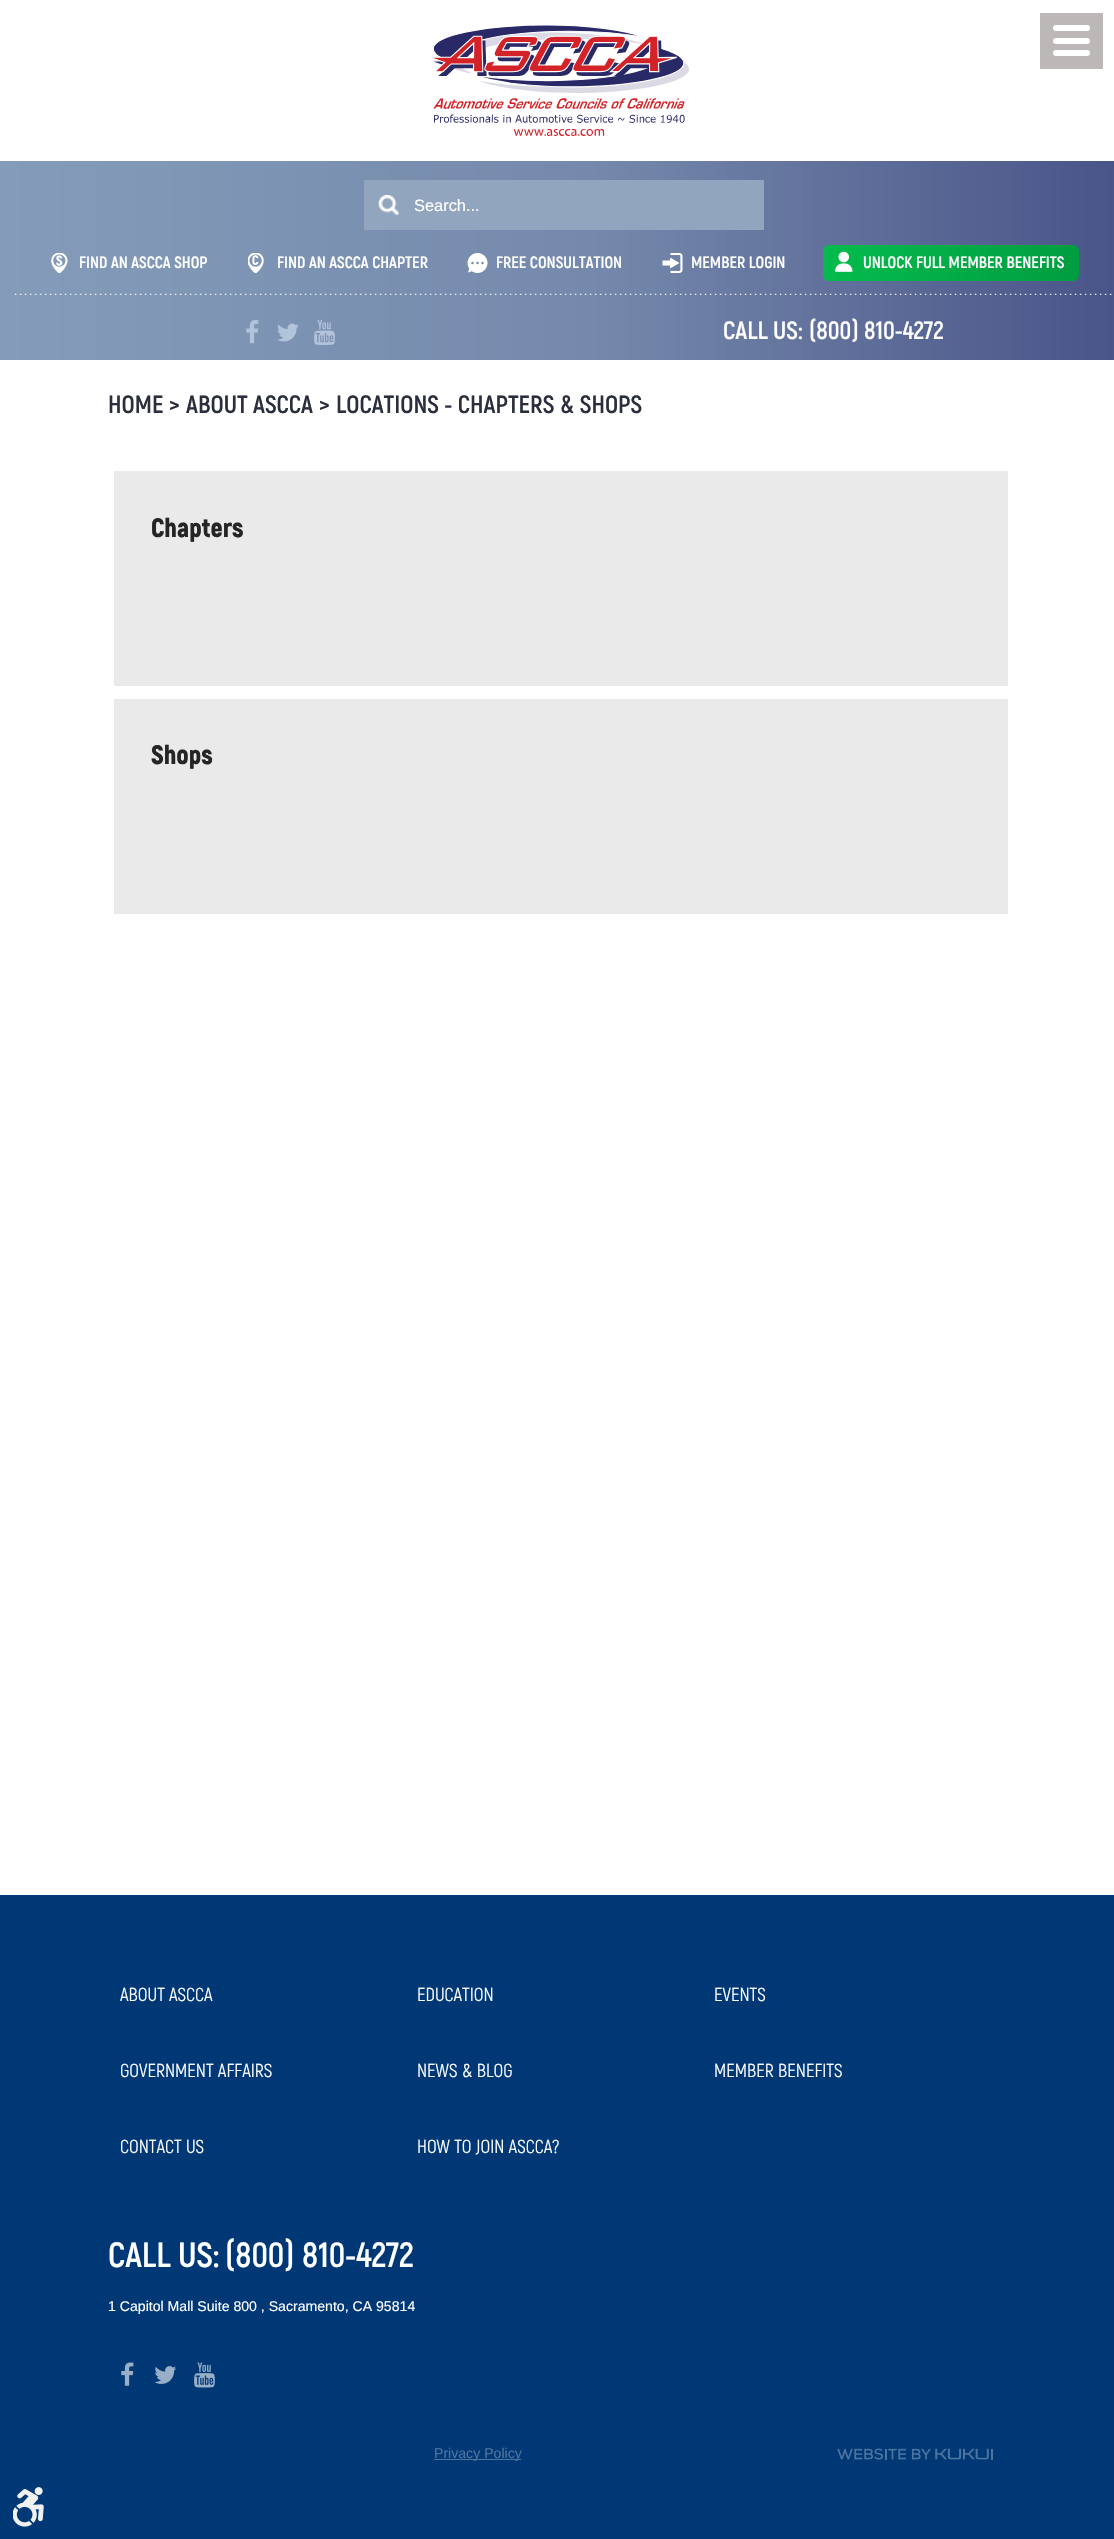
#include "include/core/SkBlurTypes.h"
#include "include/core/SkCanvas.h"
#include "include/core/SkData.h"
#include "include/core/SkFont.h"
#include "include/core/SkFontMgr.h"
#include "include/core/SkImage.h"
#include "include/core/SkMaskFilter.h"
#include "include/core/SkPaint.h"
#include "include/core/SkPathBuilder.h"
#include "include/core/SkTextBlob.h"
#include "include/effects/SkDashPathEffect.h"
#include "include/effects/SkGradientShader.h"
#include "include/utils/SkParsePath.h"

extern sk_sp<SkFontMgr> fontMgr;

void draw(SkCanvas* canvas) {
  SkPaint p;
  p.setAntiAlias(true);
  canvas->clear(SK_ColorWHITE);
  {
    const SkColor colors[] = {SkColorSetRGB(132, 156, 185), SkColorSetRGB(117, 137, 172), SkColorSetRGB(73, 84, 136)};
    const float stops[] = {0, 0.53f, 1};
    const SkPoint ends[] = {{0, 180}, {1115, 180}};
    p.setShader(SkGradientShader::MakeLinear(ends, colors, stops, 3, SkTileMode::kClamp));
    p.setAlpha(255);
  }
  canvas->drawRect(SkRect::MakeLTRB(0, 161, 1114, 360), p);
  canvas->drawImageRect(SkImages::DeferredFromEncodedData(SkData::MakeFromFileName("images/1.png")), SkRect::MakeLTRB(432, 25, 689, 136), SkSamplingOptions());
  p.setShader(nullptr);
  p.setColor(SkColorSetRGB(145, 165, 191));
  canvas->drawRect(SkRect::MakeLTRB(364, 180, 764, 230), p);
  canvas->drawImageRect(SkImages::DeferredFromEncodedData(SkData::MakeFromFileName("images/2.png")), SkRect::MakeLTRB(378, 195, 399, 215), SkSamplingOptions());
  canvas->drawImageRect(SkImages::DeferredFromEncodedData(SkData::MakeFromFileName("images/3.png")), SkRect::MakeLTRB(51, 253, 68, 273), SkSamplingOptions());
  canvas->drawImageRect(SkImages::DeferredFromEncodedData(SkData::MakeFromFileName("images/4.png")), SkRect::MakeLTRB(248, 253, 264, 273), SkSamplingOptions());
  canvas->drawImageRect(SkImages::DeferredFromEncodedData(SkData::MakeFromFileName("images/5.png")), SkRect::MakeLTRB(467, 253, 488, 273), SkSamplingOptions());
  canvas->drawImageRect(SkImages::DeferredFromEncodedData(SkData::MakeFromFileName("images/6.png")), SkRect::MakeLTRB(662, 253, 683, 273), SkSamplingOptions());
  {
    const SkColor colors[] = {SkColorSetRGB(4, 187, 77), SkColorSetRGB(1, 157, 64)};
    const float stops[] = {0, 1};
    const SkPoint ends[] = {{823, 263}, {1079, 263}};
    p.setShader(SkGradientShader::MakeLinear(ends, colors, stops, 2, SkTileMode::kClamp));
    p.setAlpha(255);
  }
  canvas->drawRoundRect(SkRect::MakeLTRB(823, 245, 1079, 281), 6, 6, p);
  canvas->drawImageRect(SkImages::DeferredFromEncodedData(SkData::MakeFromFileName("images/7.png")), SkRect::MakeLTRB(835, 251, 853, 272), SkSamplingOptions());
  canvas->drawImageRect(SkImages::DeferredFromEncodedData(SkData::MakeFromFileName("images/8.png")), SkRect::MakeLTRB(14, 293, 1112, 295), SkSamplingOptions());
  p.setShader(nullptr);
  p.setColor(SkColorSetRGB(187, 184, 183));
  canvas->drawRect(SkRect::MakeLTRB(1040, 13, 1103, 69), p);
  p.setColor(SK_ColorWHITE);
  canvas->drawRoundRect(SkRect::MakeLTRB(1053, 38, 1090, 44), 3, 3, p);
  canvas->drawRoundRect(SkRect::MakeLTRB(1053, 25, 1090, 31), 3, 3, p);
  canvas->drawRoundRect(SkRect::MakeLTRB(1053, 50, 1090, 56), 3, 3, p);
  canvas->drawImageRect(SkImages::DeferredFromEncodedData(SkData::MakeFromFileName("images/9.png")), SkRect::MakeLTRB(246, 320, 259, 344), SkSamplingOptions());
  canvas->drawImageRect(SkImages::DeferredFromEncodedData(SkData::MakeFromFileName("images/10.png")), SkRect::MakeLTRB(277, 323, 299, 342), SkSamplingOptions());
  canvas->drawImageRect(SkImages::DeferredFromEncodedData(SkData::MakeFromFileName("images/11.png")), SkRect::MakeLTRB(314, 320, 335, 345), SkSamplingOptions());
  p.setColor(SkColorSetRGB(234, 234, 234));
  canvas->drawRect(SkRect::MakeLTRB(114, 471, 1008, 686), p);
  canvas->drawRect(SkRect::MakeLTRB(114, 699, 1008, 914), p);
  p.setColor(SkColorSetRGB(0, 56, 118));
  canvas->drawRect(SkRect::MakeLTRB(0, 1895, 1114, 2539), p);
  canvas->drawImageRect(SkImages::DeferredFromEncodedData(SkData::MakeFromFileName("images/12.png")), SkRect::MakeLTRB(121, 2362, 134, 2386), SkSamplingOptions());
  canvas->drawImageRect(SkImages::DeferredFromEncodedData(SkData::MakeFromFileName("images/13.png")), SkRect::MakeLTRB(154, 2366, 177, 2384), SkSamplingOptions());
  canvas->drawImageRect(SkImages::DeferredFromEncodedData(SkData::MakeFromFileName("images/14.png")), SkRect::MakeLTRB(194, 2362, 215, 2388), SkSamplingOptions());
  p.setColor(SkColorSetRGB(77, 116, 159));
  canvas->drawRect(SkRect::MakeLTRB(434, 2459, 521, 2460), p);
  canvas->drawImageRect(SkImages::DeferredFromEncodedData(SkData::MakeFromFileName("images/15.png")), SkRect::MakeLTRB(837, 2448, 993, 2460), SkSamplingOptions());
  canvas->drawImageRect(SkImages::DeferredFromEncodedData(SkData::MakeFromFileName("images/16.png")), SkRect::MakeLTRB(13, 2487, 44, 2527), SkSamplingOptions());
  SkFont font1(fontMgr->matchFamilyStyle("Liberation Sans", SkFontStyle::Normal()), 16.4f);
  font1.setSubpixel(true);
  p.setColor(SK_ColorWHITE);
  canvas->drawString("Search...", 414, 211, font1, p);
  SkFont font2(fontMgr->matchFamilyStyle("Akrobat", SkFontStyle::Bold()), 16.4f);
  font2.setSubpixel(true);
  canvas->drawString("FIND AN ASCCA SHOP", 79, 268, font2, p);
  canvas->drawString("FIND AN ASCCA CHAPTER", 277, 268, font2, p);
  canvas->drawString("FREE CONSULTATION", 496, 268, font2, p);
  canvas->drawString("MEMBER LOGIN", 691, 268, font2, p);
  canvas->drawString("UNLOCK FULL MEMBER BENEFITS", 863, 268, font2, p);
  SkFont font3(fontMgr->matchFamilyStyle("Akrobat", SkFontStyle::Bold()), 25);
  font3.setSubpixel(true);
  canvas->drawString("CALL US:", 723, 339, font3, p);
  canvas->drawString("(800) 810-4272", 809, 339, font3, p);
  p.setColor(SkColorSetRGB(42, 46, 61));
  canvas->drawString("HOME", 108, 413, font3, p);
  canvas->drawString(">", 169, 413, font3, p);
  canvas->drawString("ABOUT ASCCA", 186, 413, font3, p);
  canvas->drawString(">", 319, 413, font3, p);
  canvas->drawString("LOCATIONS - CHAPTERS & SHOPS", 336, 413, font3, p);
  SkFont font4(fontMgr->matchFamilyStyle("Akrobat", SkFontStyle(900, SkFontStyle::kNormal_Width, SkFontStyle::kUpright_Slant)), 26.5f);
  font4.setSubpixel(true);
  p.setColor(SkColorSetRGB(37, 37, 37));
  canvas->drawString("Chapters", 151, 537, font4, p);
  canvas->drawString("Shops", 151, 764, font4, p);
  SkFont font5(fontMgr->matchFamilyStyle("Akrobat", SkFontStyle::Normal()), 18.75f);
  font5.setSubpixel(true);
  p.setColor(SK_ColorWHITE);
  canvas->drawString("ABOUT ASCCA", 120, 2001, font5, p);
  canvas->drawString("EDUCATION", 417, 2001, font5, p);
  canvas->drawString("EVENTS", 714, 2001, font5, p);
  canvas->drawString("GOVERNMENT AFFAIRS", 120, 2077, font5, p);
  canvas->drawString("NEWS & BLOG", 417, 2077, font5, p);
  canvas->drawString("MEMBER BENEFITS", 714, 2077, font5, p);
  canvas->drawString("CONTACT US", 120, 2153, font5, p);
  canvas->drawString("HOW TO JOIN ASCCA?", 417, 2153, font5, p);
  SkFont font6(fontMgr->matchFamilyStyle("Akrobat", SkFontStyle::Bold()), 35);
  font6.setSubpixel(true);
  canvas->drawString("CALL US:", 108, 2267, font6, p);
  canvas->drawString("(800) 810-4272", 225, 2267, font6, p);
  SkFont font7(fontMgr->matchFamilyStyle("Liberation Sans", SkFontStyle::Normal()), 14.1f);
  font7.setSubpixel(true);
  canvas->drawString("1 Capitol Mall Suite 800 , Sacramento, CA 95814", 108, 2311, font7, p);
  p.setColor(SkColorSetRGB(77, 116, 159));
  canvas->drawString("Privacy Policy", 434, 2458, font7, p);
}
